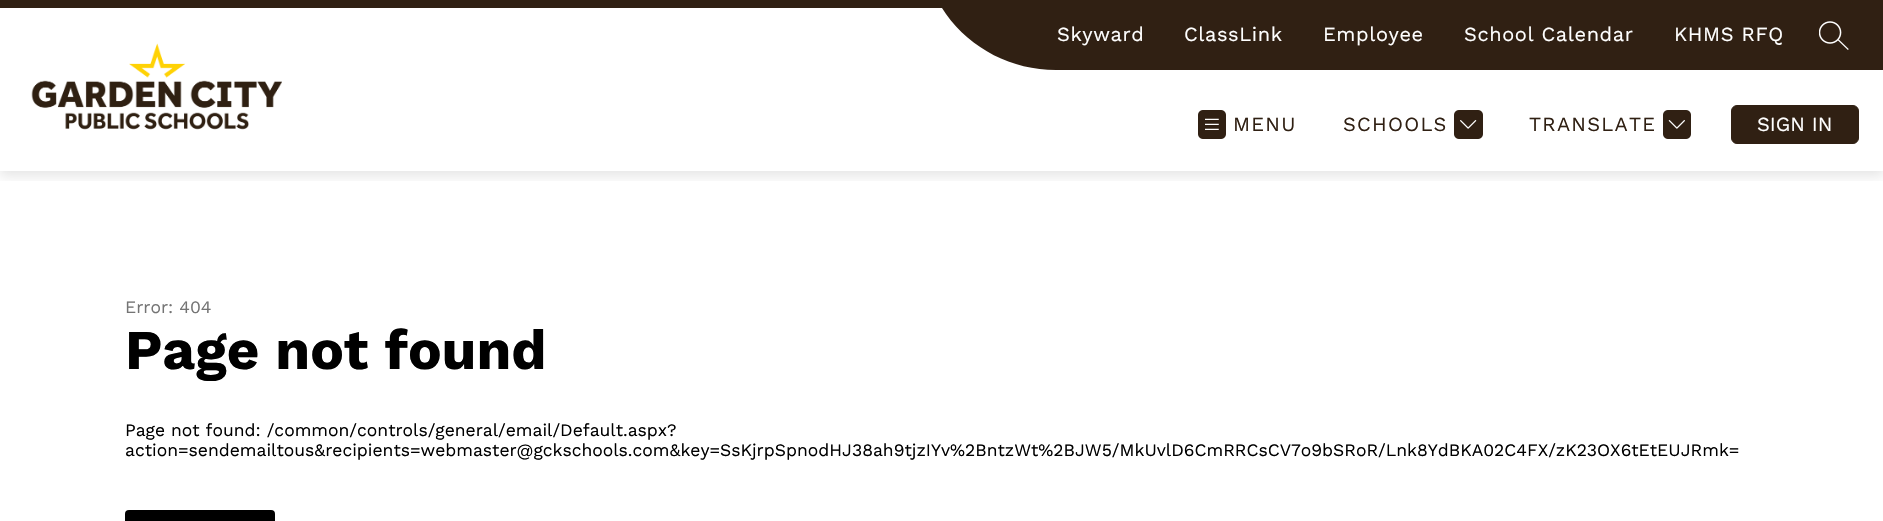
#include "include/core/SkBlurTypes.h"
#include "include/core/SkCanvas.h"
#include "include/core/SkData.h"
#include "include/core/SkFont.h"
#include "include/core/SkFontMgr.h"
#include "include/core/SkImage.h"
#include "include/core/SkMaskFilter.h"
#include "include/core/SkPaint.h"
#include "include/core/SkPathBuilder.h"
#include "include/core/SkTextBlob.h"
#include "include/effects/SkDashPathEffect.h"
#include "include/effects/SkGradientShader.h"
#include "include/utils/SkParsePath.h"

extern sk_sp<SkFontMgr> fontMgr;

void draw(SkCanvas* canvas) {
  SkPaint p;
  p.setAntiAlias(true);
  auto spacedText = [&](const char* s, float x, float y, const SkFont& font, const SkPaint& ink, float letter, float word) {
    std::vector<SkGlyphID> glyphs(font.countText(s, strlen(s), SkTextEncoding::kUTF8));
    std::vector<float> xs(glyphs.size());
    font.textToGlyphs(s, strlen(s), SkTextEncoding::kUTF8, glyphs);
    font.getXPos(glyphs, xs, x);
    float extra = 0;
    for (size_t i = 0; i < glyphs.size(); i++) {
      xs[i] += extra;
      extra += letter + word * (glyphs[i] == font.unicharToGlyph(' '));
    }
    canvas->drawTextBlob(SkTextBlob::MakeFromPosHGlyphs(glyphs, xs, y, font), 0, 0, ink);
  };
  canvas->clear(SK_ColorWHITE);
  canvas->save();
  canvas->clipRect(SkRect::MakeLTRB(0, 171, 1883, 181));
  p.setColor(SkColorSetARGB(26, 0, 0, 0));
  p.setMaskFilter(SkMaskFilter::MakeBlur(kNormal_SkBlurStyle, 6));
  canvas->drawRect(SkRect::MakeLTRB(0, 5, 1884, 176), p);
  p.setMaskFilter(nullptr);
  canvas->restore();
  p.setColor(SkColorSetRGB(48, 32, 19));
  canvas->drawRect(SkRect::MakeLTRB(0, 0, 942, 8), p);
  canvas->drawImageRect(SkImages::DeferredFromEncodedData(SkData::MakeFromFileName("images/1.png")), SkRect::MakeLTRB(31, 43, 282, 130), SkSamplingOptions());
  canvas->drawRect(SkRect::MakeLTRB(1059, 0, 1883, 70), p);
  canvas->drawPath(SkPathBuilder().moveTo(1056, 70).lineTo(1059, 70).lineTo(1059, 0).lineTo(939, 0).cubicTo(938, 0, 937, 1, 938, 2).lineTo(946, 14).cubicTo(971, 49, 1012, 70, 1056, 70).close().detach(), p);
  canvas->drawImageRect(SkImages::DeferredFromEncodedData(SkData::MakeFromFileName("images/2.png")), SkRect::MakeLTRB(1819, 21, 1849, 50), SkSamplingOptions());
  canvas->drawImageRect(SkImages::DeferredFromEncodedData(SkData::MakeFromFileName("images/3.png")), SkRect::MakeLTRB(1198, 110, 1226, 139), SkSamplingOptions());
  canvas->drawImageRect(SkImages::DeferredFromEncodedData(SkData::MakeFromFileName("images/4.png")), SkRect::MakeLTRB(1454, 110, 1483, 139), SkSamplingOptions());
  canvas->drawImageRect(SkImages::DeferredFromEncodedData(SkData::MakeFromFileName("images/5.png")), SkRect::MakeLTRB(1663, 110, 1691, 139), SkSamplingOptions());
  canvas->drawRoundRect(SkRect::MakeLTRB(1731.5f, 105.5f, 1858.5f, 143.5f), 5.5f, 5.5f, p);
  p.setStyle(SkPaint::kStroke_Style);
  p.setStrokeWidth(1);
  canvas->drawRoundRect(SkRect::MakeLTRB(1731.5f, 105.5f, 1858.5f, 143.5f), 5.5f, 5.5f, p);
  p.setStyle(SkPaint::kFill_Style);
  p.setColor(SK_ColorBLACK);
  canvas->drawRoundRect(SkRect::MakeLTRB(125, 510, 275, 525), 4, 4, p);
  SkFont font1(fontMgr->matchFamilyStyle("Work Sans", SkFontStyle::Normal()), 20);
  font1.setSubpixel(true);
  p.setColor(SK_ColorWHITE);
  spacedText("Skyward", 1057, 41, font1, p, 0.6f, 0);
  spacedText("ClassLink", 1184, 41, font1, p, 0.6f, 0);
  spacedText("Employee", 1323, 41, font1, p, 0.6f, 0);
  spacedText("School Calendar", 1464, 41, font1, p, 0.6f, 0);
  spacedText("KHMS RFQ", 1674, 41, font1, p, 0.6f, 0);
  p.setColor(SkColorSetRGB(48, 32, 19));
  spacedText("MENU", 1233, 131, font1, p, 1.25f, 0);
  spacedText("SCHOOLS", 1343, 131, font1, p, 1.25f, 0);
  spacedText("TRANSLATE", 1529, 131, font1, p, 1.25f, 0);
  p.setColor(SK_ColorWHITE);
  canvas->drawString("SIGN IN", 1757, 131, font1, p);
  SkFont font2(fontMgr->matchFamilyStyle("Work Sans", SkFontStyle::Normal()), 17.5f);
  font2.setSubpixel(true);
  p.setColor(SkColorSetRGB(116, 116, 116));
  canvas->drawString("Error: 404", 125, 313, font2, p);
  SkFont font3(fontMgr->matchFamilyStyle("Work Sans", SkFontStyle::Bold()), 56.25f);
  font3.setSubpixel(true);
  p.setColor(SK_ColorBLACK);
  canvas->drawString("Page not found", 125, 369, font3, p);
  canvas->drawString("Page not found: /common/controls/general/email/Default.aspx?", 125, 436, font2, p);
  canvas->drawString("action=sendemailtous&recipients=webmaster@gckschools.com&key=SsKjrpSpnodHJ38ah9tjzIYv%2BntzWt%2BJW5/MkUvlD6CmRRCsCV7o9bSRoR/Lnk8YdBKA02C4FX/zK23OX6tEtEUJRmk=", 125, 456, font2, p);
}
